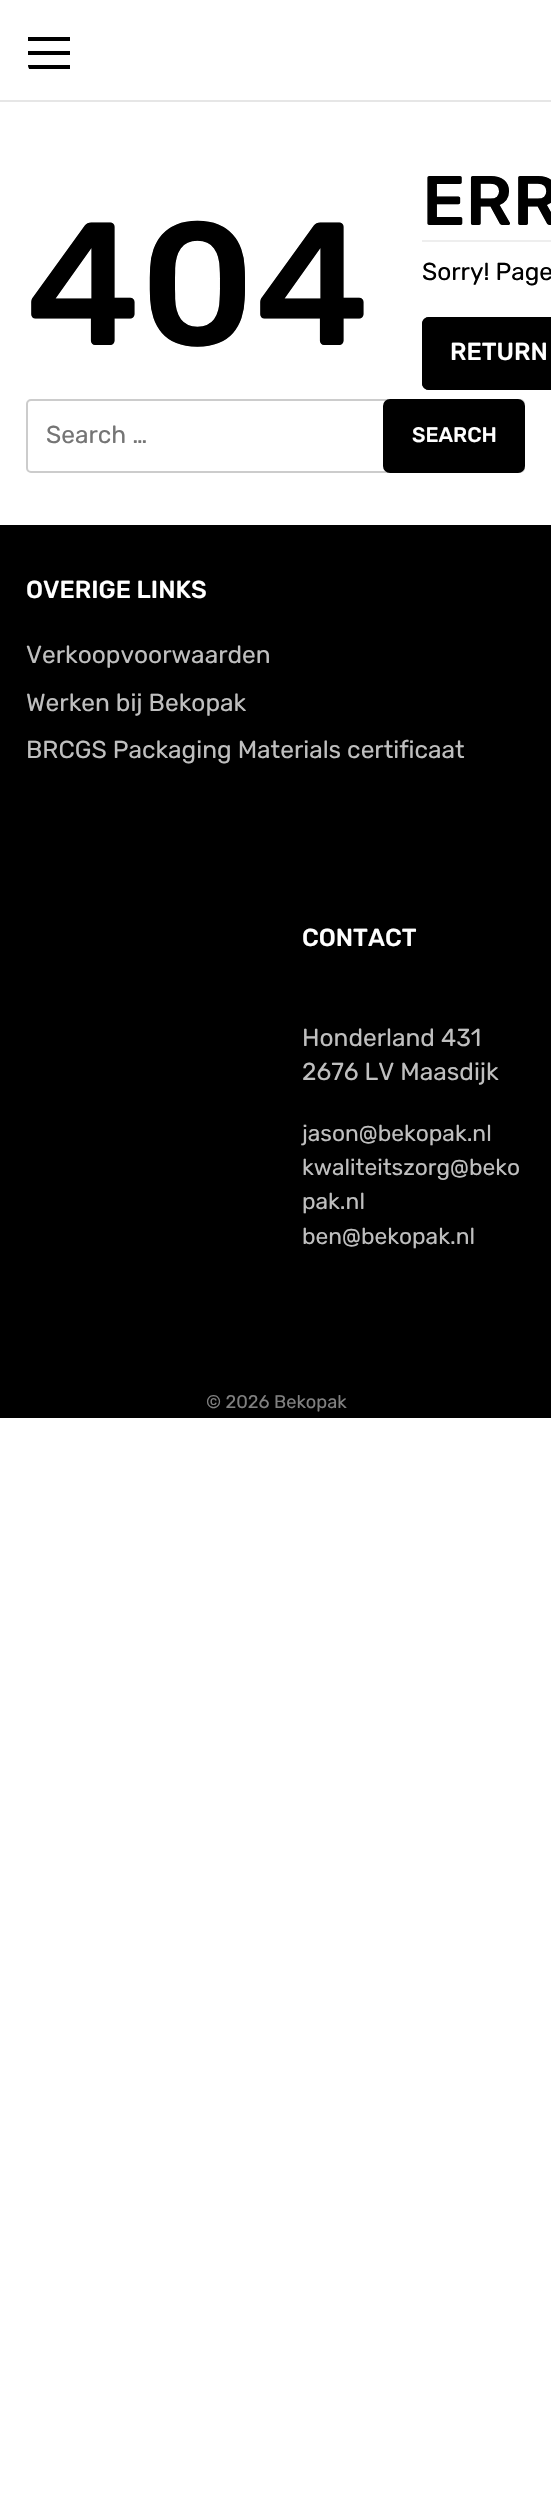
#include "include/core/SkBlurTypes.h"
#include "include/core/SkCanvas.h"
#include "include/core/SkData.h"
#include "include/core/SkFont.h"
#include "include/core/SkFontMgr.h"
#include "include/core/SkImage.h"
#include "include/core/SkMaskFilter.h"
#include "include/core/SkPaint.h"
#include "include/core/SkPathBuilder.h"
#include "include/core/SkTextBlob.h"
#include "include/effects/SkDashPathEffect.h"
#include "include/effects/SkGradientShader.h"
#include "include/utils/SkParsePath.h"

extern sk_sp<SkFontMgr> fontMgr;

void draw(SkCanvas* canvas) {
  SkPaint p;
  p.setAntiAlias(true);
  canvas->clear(SK_ColorWHITE);
  p.setColor(SkColorSetRGB(230, 230, 230));
  canvas->drawRect(SkRect::MakeLTRB(0, 100, 551, 102), p);
  p.setColor(SK_ColorBLACK);
  canvas->drawRect(SkRect::MakeLTRB(28, 37, 70, 41), p);
  canvas->drawRect(SkRect::MakeLTRB(28, 51, 70, 55), p);
  canvas->save();
  canvas->clipPath(SkPathBuilder().moveTo(35, 30).lineTo(74, 30).cubicTo(78, 30, 81, 33, 81, 37).lineTo(81, 65).cubicTo(81, 69, 78, 72, 74, 72).lineTo(35, 72).cubicTo(31, 72, 28, 69, 28, 65).lineTo(28, 37).cubicTo(28, 33, 31, 30, 35, 30).close().detach(), true);
  canvas->drawRect(SkRect::MakeLTRB(28, 65, 70, 69), p);
  canvas->restore();
  p.setColor(SkColorSetRGB(238, 238, 238));
  canvas->drawRect(SkRect::MakeLTRB(422, 240, 551, 242), p);
  p.setColor(SK_ColorBLACK);
  canvas->drawPath(SkPathBuilder().moveTo(429, 317).lineTo(551, 317).lineTo(551, 390).lineTo(429, 390).cubicTo(425, 390, 422, 387, 422, 383).lineTo(422, 324).cubicTo(422, 320, 425, 317, 429, 317).close().detach(), p);
  p.setStyle(SkPaint::kStroke_Style);
  p.setStrokeWidth(2);
  canvas->drawRoundRect(SkRect::MakeLTRB(423, 318, 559, 389), 6, 6, p);
  p.setColor(SkColorSetRGB(204, 204, 204));
  canvas->drawRoundRect(SkRect::MakeLTRB(27, 400, 524, 472), 4, 4, p);
  p.setStyle(SkPaint::kFill_Style);
  p.setColor(SK_ColorBLACK);
  canvas->drawRoundRect(SkRect::MakeLTRB(384, 400, 524, 472), 6, 6, p);
  p.setStyle(SkPaint::kStroke_Style);
  canvas->drawRoundRect(SkRect::MakeLTRB(384, 400, 524, 472), 6, 6, p);
  p.setStyle(SkPaint::kFill_Style);
  canvas->drawRect(SkRect::MakeLTRB(0, 525, 551, 1418), p);
  SkFont font1(fontMgr->matchFamilyStyle("Rubik", SkFontStyle(500, SkFontStyle::kNormal_Width, SkFontStyle::kUpright_Slant)), 175);
  font1.setSubpixel(true);
  canvas->drawString("404", 26, 345, font1, p);
  SkFont font2(fontMgr->matchFamilyStyle("Rubik", SkFontStyle(500, SkFontStyle::kNormal_Width, SkFontStyle::kUpright_Slant)), 70);
  font2.setSubpixel(true);
  canvas->drawString("ERR", 422, 225, font2, p);
  SkFont font3(fontMgr->matchFamilyStyle("Rubik", SkFontStyle::Normal()), 24.5f);
  font3.setSubpixel(true);
  canvas->drawString("Sorry! Page", 422, 280, font3, p);
  SkFont font4(fontMgr->matchFamilyStyle("Rubik", SkFontStyle(500, SkFontStyle::kNormal_Width, SkFontStyle::kUpright_Slant)), 24.5f);
  font4.setSubpixel(true);
  p.setColor(SK_ColorWHITE);
  canvas->drawString("RETURN", 450, 360, font4, p);
  p.setColor(SkColorSetRGB(117, 117, 117));
  canvas->drawString("Search …", 46, 443, font3, p);
  SkFont font5(fontMgr->matchFamilyStyle("Rubik", SkFontStyle(500, SkFontStyle::kNormal_Width, SkFontStyle::kUpright_Slant)), 21);
  font5.setSubpixel(true);
  p.setColor(SK_ColorWHITE);
  canvas->drawString("SEARCH", 412, 442, font5, p);
  canvas->drawString("OVERIGE LINKS", 26, 598, font4, p);
  p.setColor(SkColorSetRGB(191, 191, 191));
  canvas->drawString("Verkoopvoorwaarden", 26, 663, font3, p);
  canvas->drawString("Werken bij Bekopak", 26, 711, font3, p);
  canvas->drawString("BRCGS Packaging Materials certificaat", 26, 758, font3, p);
  p.setColor(SK_ColorWHITE);
  canvas->drawString("CONTACT", 302, 946, font4, p);
  p.setColor(SkColorSetRGB(191, 191, 191));
  canvas->drawString("Honderland 431", 302, 1046, font3, p);
  canvas->drawString("2676 LV Maasdijk", 302, 1080, font3, p);
  SkFont font6(fontMgr->matchFamilyStyle("Rubik", SkFontStyle::Normal()), 22.75f);
  font6.setSubpixel(true);
  canvas->drawString("jason@bekopak.nl", 302, 1141, font6, p);
  canvas->drawString("kwaliteitszorg@beko", 302, 1175, font6, p);
  canvas->drawString("pak.nl", 302, 1209, font6, p);
  canvas->drawString("ben@bekopak.nl", 302, 1244, font6, p);
  SkFont font7(fontMgr->matchFamilyStyle("Rubik", SkFontStyle::Normal()), 18.25f);
  font7.setSubpixel(true);
  p.setColor(SkColorSetRGB(128, 128, 128));
  canvas->drawString("© 2026 Bekopak", 206, 1408, font7, p);
}
